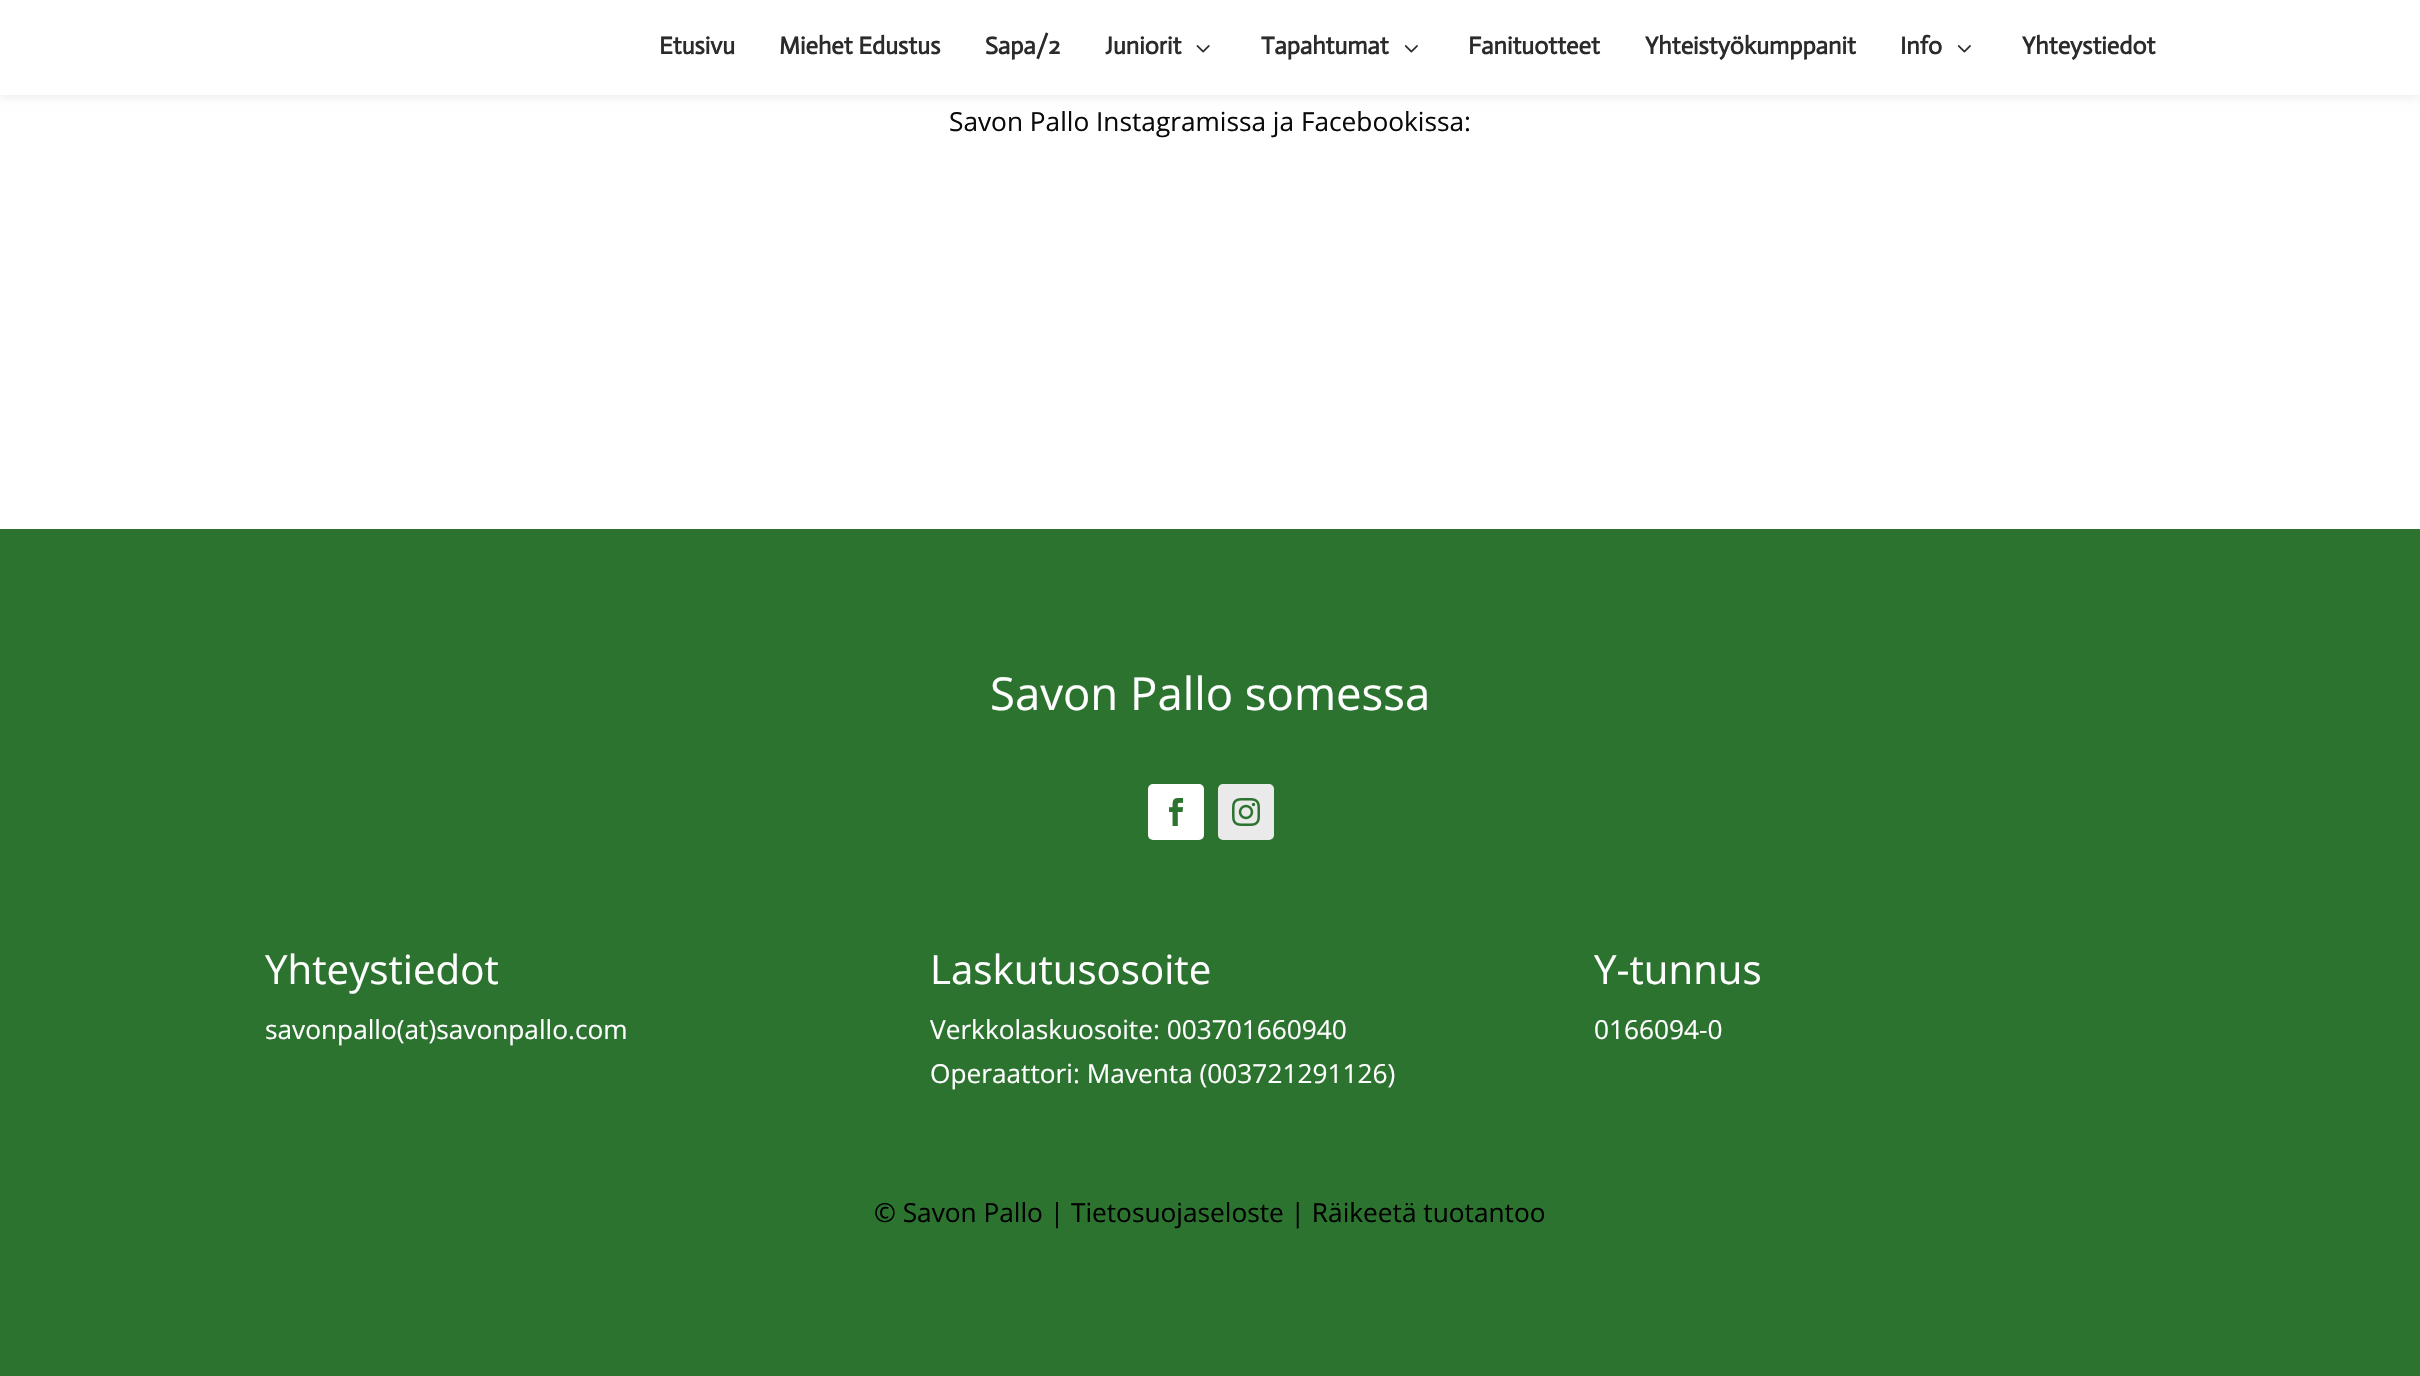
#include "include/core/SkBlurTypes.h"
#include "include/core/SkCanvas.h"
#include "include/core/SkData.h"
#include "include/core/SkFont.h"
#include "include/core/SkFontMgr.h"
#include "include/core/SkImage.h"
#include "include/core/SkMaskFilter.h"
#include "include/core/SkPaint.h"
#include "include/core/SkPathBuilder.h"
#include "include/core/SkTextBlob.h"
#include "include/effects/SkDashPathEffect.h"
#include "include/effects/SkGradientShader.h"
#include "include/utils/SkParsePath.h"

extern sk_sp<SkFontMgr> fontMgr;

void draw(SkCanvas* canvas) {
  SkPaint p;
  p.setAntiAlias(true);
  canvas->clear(SK_ColorWHITE);
  p.setColor(SkColorSetARGB(26, 0, 0, 0));
  p.setMaskFilter(SkMaskFilter::MakeBlur(kNormal_SkBlurStyle, 6));
  canvas->drawRect(SkRect::MakeLTRB(0, 0, 2420, 95), p);
  p.setMaskFilter(nullptr);
  p.setColor(SK_ColorWHITE);
  canvas->drawRect(SkRect::MakeLTRB(0, 0, 2420, 95), p);
  canvas->drawImageRect(SkImages::DeferredFromEncodedData(SkData::MakeFromFileName("images/1.png")), SkRect::MakeLTRB(1196, 45, 1210, 53), SkSamplingOptions());
  canvas->drawImageRect(SkImages::DeferredFromEncodedData(SkData::MakeFromFileName("images/2.png")), SkRect::MakeLTRB(1404, 45, 1418, 53), SkSamplingOptions());
  canvas->drawImageRect(SkImages::DeferredFromEncodedData(SkData::MakeFromFileName("images/2.png")), SkRect::MakeLTRB(1957, 45, 1971, 53), SkSamplingOptions());
  p.setColor(SkColorSetRGB(44, 115, 48));
  canvas->drawRect(SkRect::MakeLTRB(0, 529, 2420, 1376), p);
  p.setColor(SK_ColorWHITE);
  canvas->drawRoundRect(SkRect::MakeLTRB(1148, 784, 1204, 840), 5, 5, p);
  canvas->drawImageRect(SkImages::DeferredFromEncodedData(SkData::MakeFromFileName("images/3.png")), SkRect::MakeLTRB(1169, 798, 1184, 826), SkSamplingOptions());
  p.setColor(SkColorSetRGB(234, 234, 234));
  canvas->drawRoundRect(SkRect::MakeLTRB(1218, 784, 1274, 840), 5, 5, p);
  canvas->drawImageRect(SkImages::DeferredFromEncodedData(SkData::MakeFromFileName("images/4.png")), SkRect::MakeLTRB(1232, 798, 1260, 826), SkSamplingOptions());
  SkFont font1(fontMgr->matchFamilyStyle("Actor", SkFontStyle::Bold()), 24.5f);
  font1.setSubpixel(true);
  p.setColor(SkColorSetRGB(43, 43, 43));
  canvas->drawString("Etusivu", 659, 54, font1, p);
  canvas->drawString("Miehet Edustus", 779, 54, font1, p);
  canvas->drawString("Sapa/2", 985, 54, font1, p);
  canvas->drawString("Juniorit", 1105, 54, font1, p);
  canvas->drawString("Tapahtumat", 1261, 54, font1, p);
  canvas->drawString("Fanituotteet", 1468, 54, font1, p);
  canvas->drawString("Yhteistyökumppanit", 1645, 54, font1, p);
  canvas->drawString("Info", 1900, 54, font1, p);
  canvas->drawString("Yhteystiedot", 2022, 54, font1, p);
  SkFont font2(fontMgr->matchFamilyStyle("Open Sans", SkFontStyle::Normal()), 26.25f);
  font2.setSubpixel(true);
  p.setColor(SkColorSetRGB(10, 10, 10));
  canvas->drawString("Savon Pallo Instagramissa ja Facebookissa:", 949, 131, font2, p);
  SkFont font3(fontMgr->matchFamilyStyle("Open Sans", SkFontStyle::Normal()), 45.5f);
  font3.setSubpixel(true);
  p.setColor(SK_ColorWHITE);
  canvas->drawString("Savon Pallo somessa", 990, 710, font3, p);
  SkFont font4(fontMgr->matchFamilyStyle("Open Sans", SkFontStyle::Normal()), 40.25f);
  font4.setSubpixel(true);
  canvas->drawString("Yhteystiedot", 265, 984, font4, p);
  canvas->drawString("savonpallo(at)savonpallo.com", 265, 1039, font2, p);
  canvas->drawString("Laskutusosoite", 930, 984, font4, p);
  canvas->drawString("Verkkolaskuosoite: 003701660940", 930, 1039, font2, p);
  canvas->drawString("Operaattori: Maventa (003721291126)", 930, 1083, font2, p);
  canvas->drawString("Y-tunnus", 1594, 984, font4, p);
  canvas->drawString("0166094-0", 1594, 1039, font2, p);
  p.setColor(SK_ColorBLACK);
  canvas->drawString("© Savon Pallo | Tietosuojaseloste | Räikeetä tuotantoo", 874, 1222, font2, p);
}
